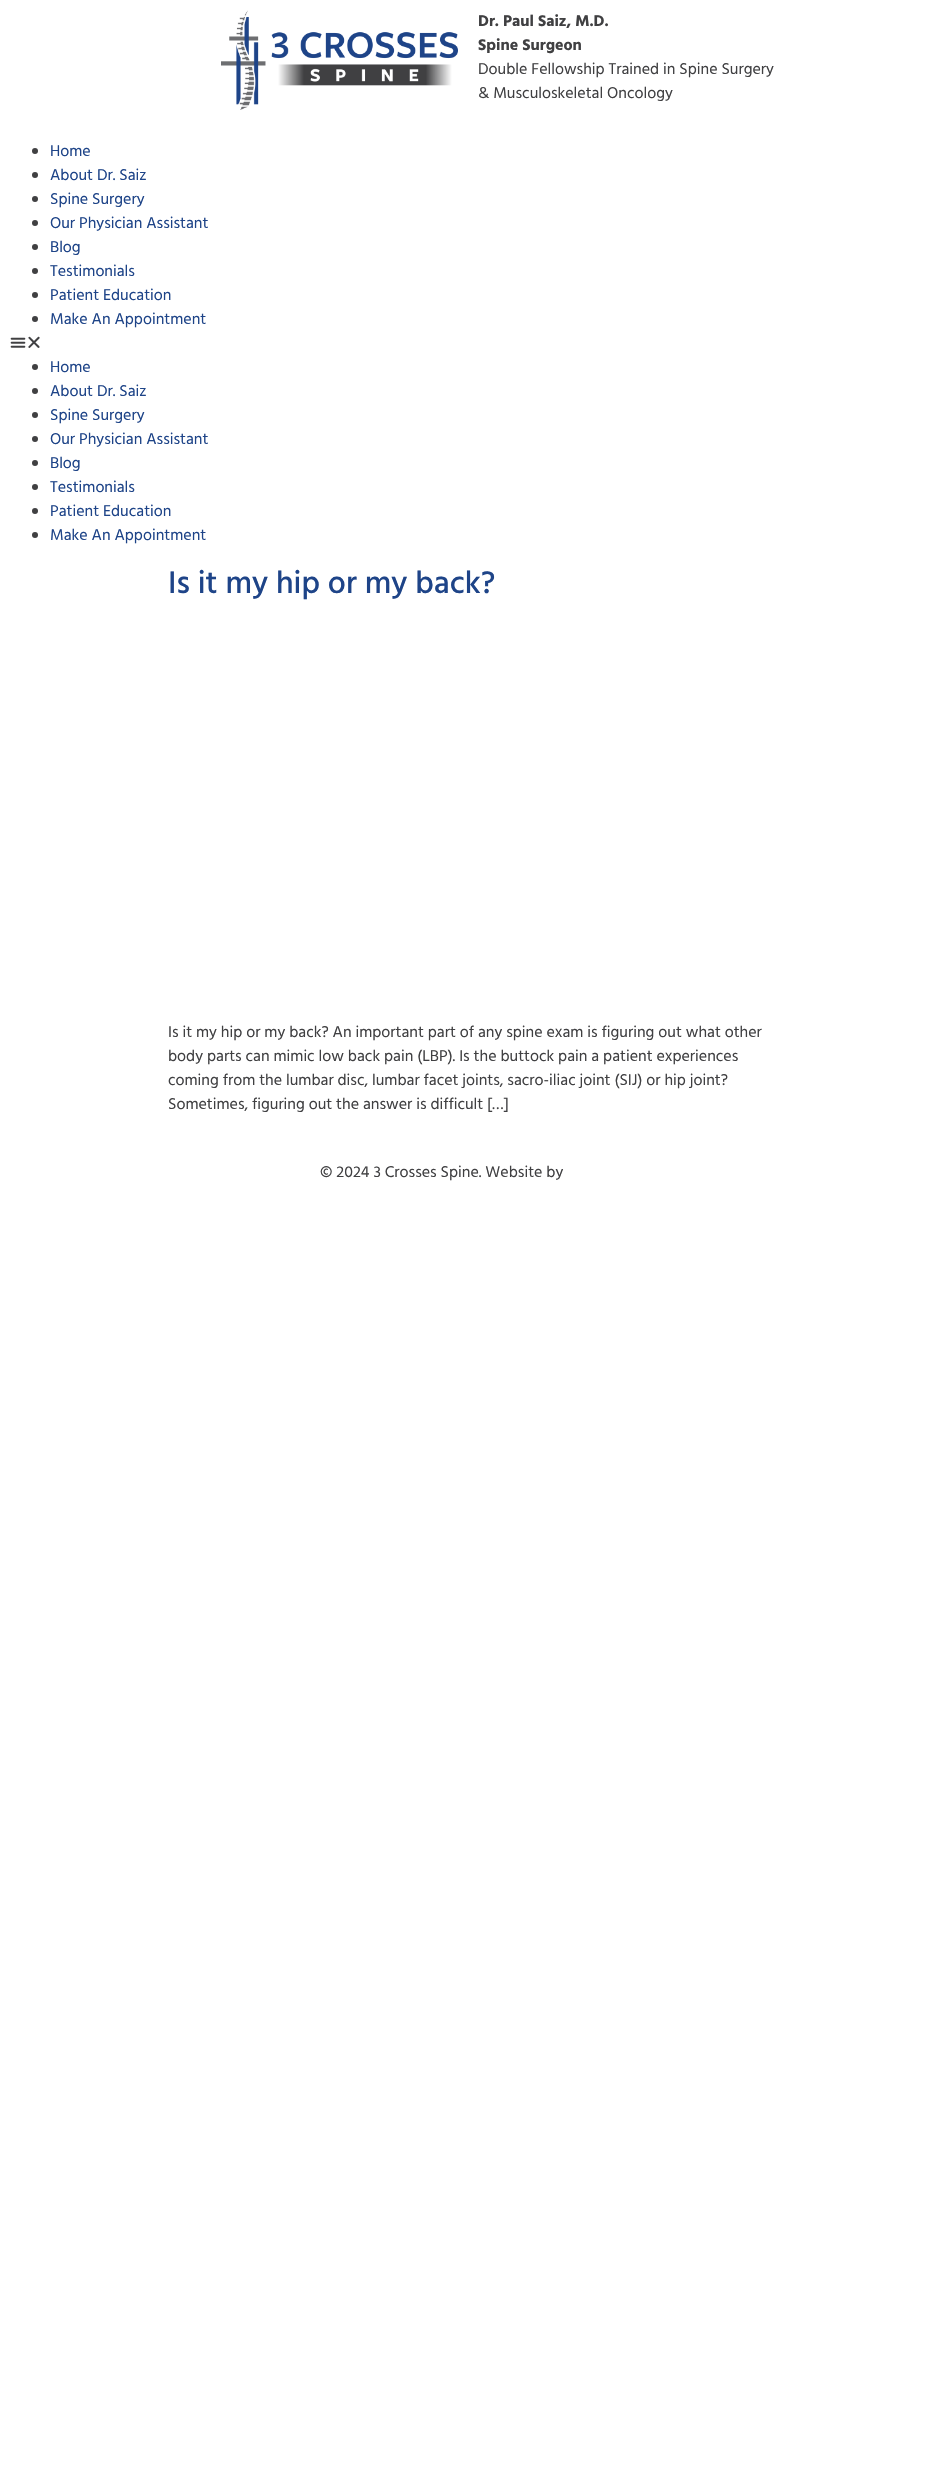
#include "include/core/SkBlurTypes.h"
#include "include/core/SkCanvas.h"
#include "include/core/SkData.h"
#include "include/core/SkFont.h"
#include "include/core/SkFontMgr.h"
#include "include/core/SkImage.h"
#include "include/core/SkMaskFilter.h"
#include "include/core/SkPaint.h"
#include "include/core/SkPathBuilder.h"
#include "include/core/SkTextBlob.h"
#include "include/effects/SkDashPathEffect.h"
#include "include/effects/SkGradientShader.h"
#include "include/utils/SkParsePath.h"

extern sk_sp<SkFontMgr> fontMgr;

void draw(SkCanvas* canvas) {
  SkPaint p;
  p.setAntiAlias(true);
  canvas->clear(SK_ColorWHITE);
  canvas->drawImageRect(SkImages::DeferredFromEncodedData(SkData::MakeFromFileName("images/1.png")), SkRect::MakeLTRB(221, 10, 458, 110), SkSamplingOptions());
  p.setColor(SkColorSetRGB(64, 64, 66));
  canvas->drawCircle(35, 151, 3, p);
  canvas->drawCircle(35, 175, 3, p);
  canvas->drawCircle(35, 199, 3, p);
  canvas->drawCircle(35, 223, 3, p);
  canvas->drawCircle(35, 247, 3, p);
  canvas->drawCircle(35, 271, 3, p);
  canvas->drawCircle(35, 295, 3, p);
  canvas->drawCircle(35, 319, 3, p);
  canvas->drawImageRect(SkImages::DeferredFromEncodedData(SkData::MakeFromFileName("images/2.png")), SkRect::MakeLTRB(10, 337, 26, 348), SkSamplingOptions());
  canvas->drawImageRect(SkImages::DeferredFromEncodedData(SkData::MakeFromFileName("images/3.png")), SkRect::MakeLTRB(28, 336, 40, 348), SkSamplingOptions());
  canvas->drawCircle(35, 367, 3, p);
  canvas->drawCircle(35, 391, 3, p);
  canvas->drawCircle(35, 415, 3, p);
  canvas->drawCircle(35, 439, 3, p);
  canvas->drawCircle(35, 463, 3, p);
  canvas->drawCircle(35, 487, 3, p);
  canvas->drawCircle(35, 511, 3, p);
  canvas->drawCircle(35, 535, 3, p);
  SkFont font1(fontMgr->matchFamilyStyle("Hind", SkFontStyle::Bold()), 16);
  font1.setSubpixel(true);
  canvas->drawString("Dr. Paul Saiz, M.D.", 478, 26, font1, p);
  canvas->drawString("Spine Surgeon", 478, 50, font1, p);
  SkFont font2(fontMgr->matchFamilyStyle("Hind", SkFontStyle::Normal()), 16);
  font2.setSubpixel(true);
  canvas->drawString("Double Fellowship Trained in Spine Surgery", 478, 74, font2, p);
  canvas->drawString("& Musculoskeletal Oncology", 478, 98, font2, p);
  p.setColor(SkColorSetRGB(30, 68, 136));
  canvas->drawString("Home", 50, 156, font2, p);
  canvas->drawString("About Dr. Saiz", 50, 180, font2, p);
  canvas->drawString("Spine Surgery", 50, 204, font2, p);
  canvas->drawString("Our Physician Assistant", 50, 228, font2, p);
  canvas->drawString("Blog", 50, 252, font2, p);
  canvas->drawString("Testimonials", 50, 276, font2, p);
  canvas->drawString("Patient Education", 50, 300, font2, p);
  canvas->drawString("Make An Appointment", 50, 324, font2, p);
  canvas->drawString("Home", 50, 372, font2, p);
  canvas->drawString("About Dr. Saiz", 50, 396, font2, p);
  canvas->drawString("Spine Surgery", 50, 420, font2, p);
  canvas->drawString("Our Physician Assistant", 50, 444, font2, p);
  canvas->drawString("Blog", 50, 468, font2, p);
  canvas->drawString("Testimonials", 50, 492, font2, p);
  canvas->drawString("Patient Education", 50, 516, font2, p);
  canvas->drawString("Make An Appointment", 50, 540, font2, p);
  SkFont font3(fontMgr->matchFamilyStyle("Hind", SkFontStyle(500, SkFontStyle::kNormal_Width, SkFontStyle::kUpright_Slant)), 32);
  font3.setSubpixel(true);
  canvas->drawString("Is it my hip or my back?", 168, 593, font3, p);
  p.setColor(SkColorSetRGB(64, 64, 66));
  canvas->drawString("Is it my hip or my back? An important part of any spine exam is figuring out what other", 168, 1037, font2, p);
  canvas->drawString("body parts can mimic low back pain (LBP). Is the buttock pain a patient experiences", 168, 1061, font2, p);
  canvas->drawString("coming from the lumbar disc, lumbar facet joints, sacro-iliac joint (SIJ) or hip joint?", 168, 1085, font2, p);
  canvas->drawString("Sometimes, figuring out the answer is difficult […]", 168, 1109, font2, p);
  canvas->drawString("© 2024 3 Crosses Spine. Website by", 320, 1177, font2, p);
}
